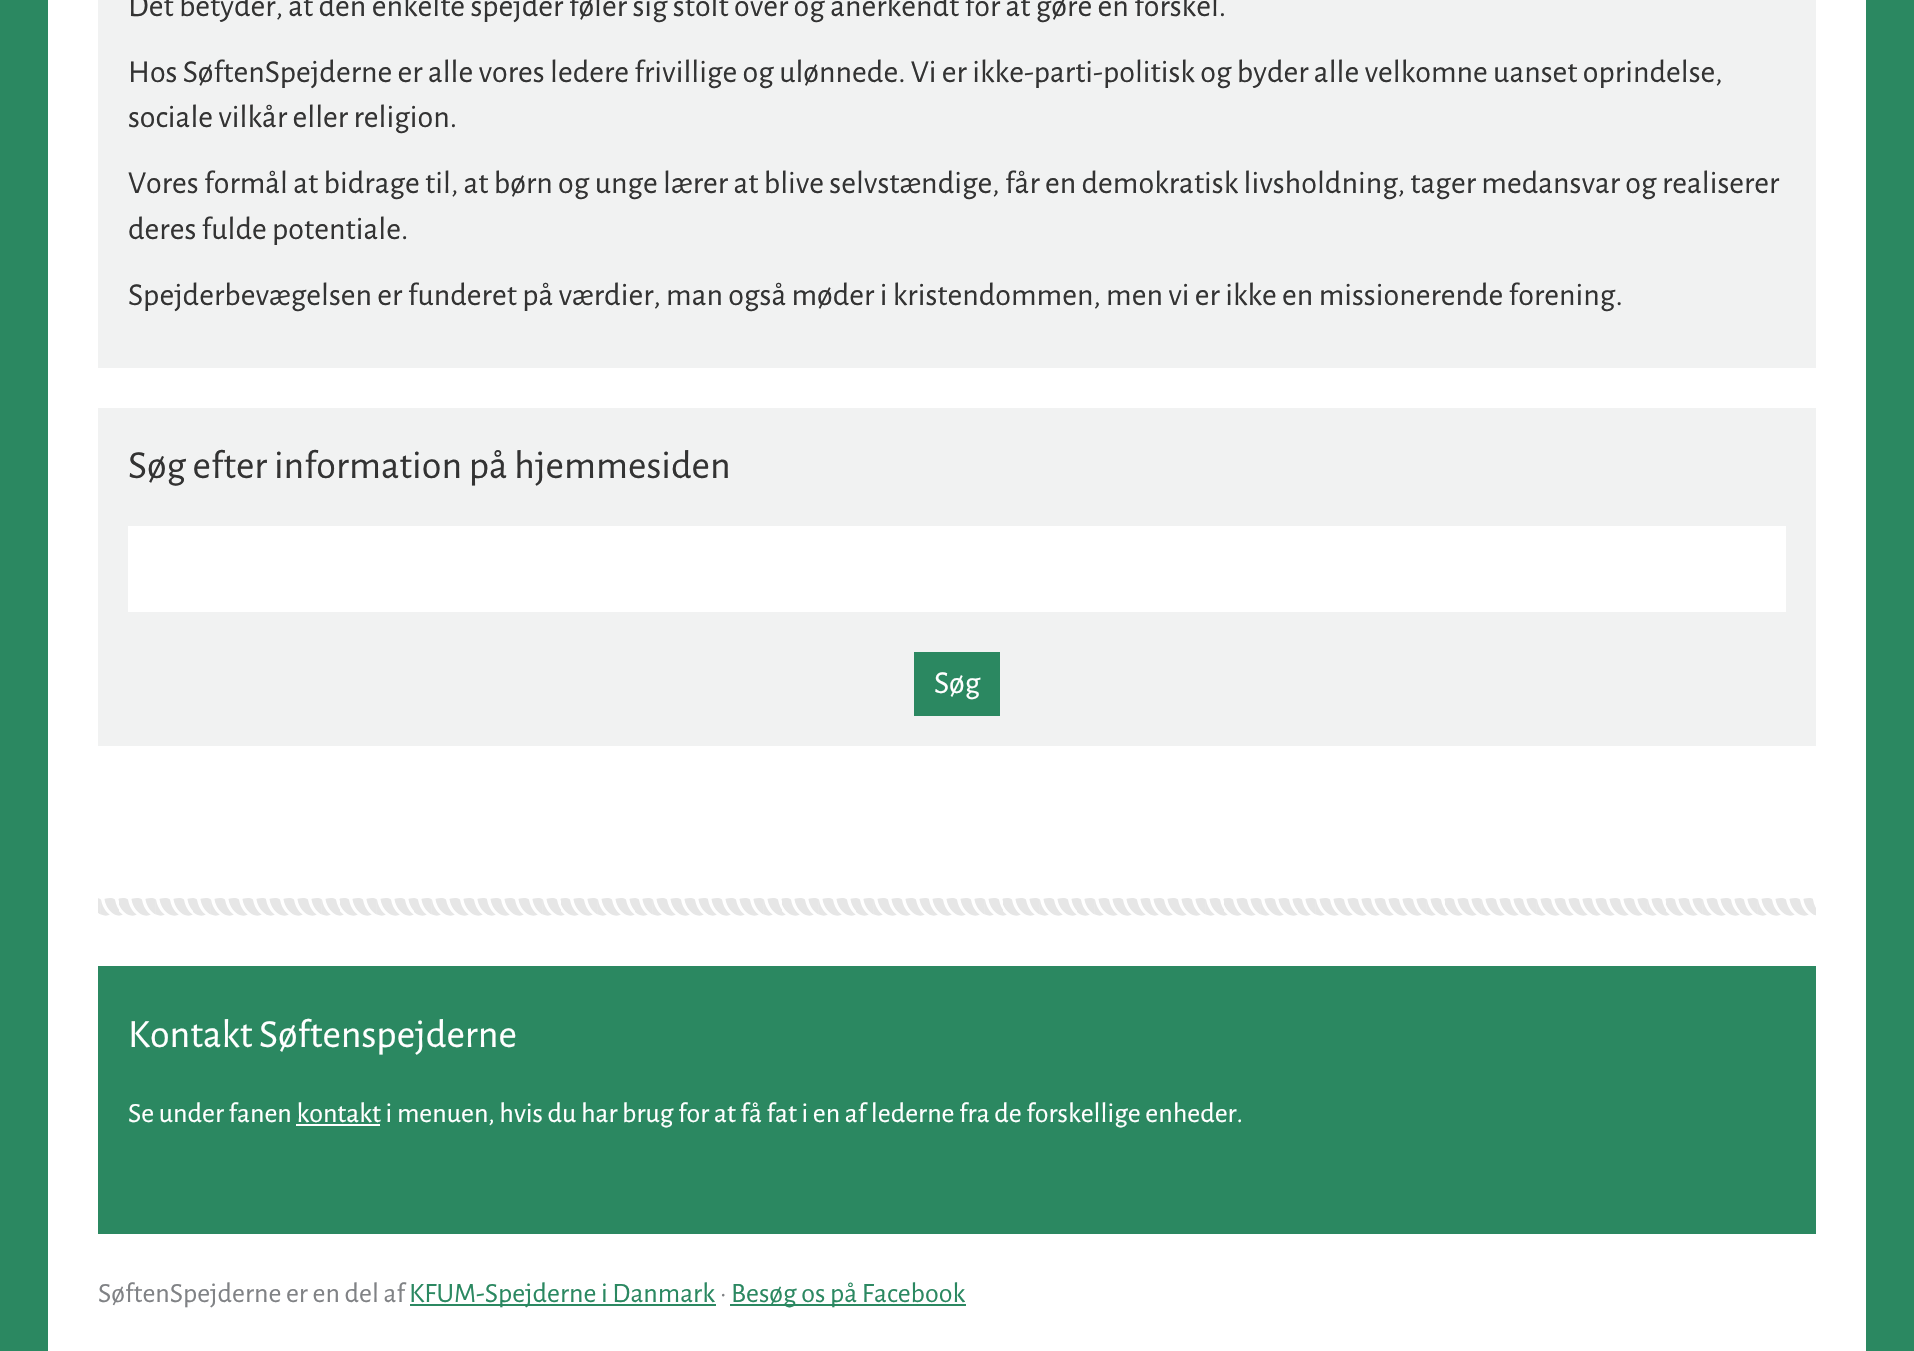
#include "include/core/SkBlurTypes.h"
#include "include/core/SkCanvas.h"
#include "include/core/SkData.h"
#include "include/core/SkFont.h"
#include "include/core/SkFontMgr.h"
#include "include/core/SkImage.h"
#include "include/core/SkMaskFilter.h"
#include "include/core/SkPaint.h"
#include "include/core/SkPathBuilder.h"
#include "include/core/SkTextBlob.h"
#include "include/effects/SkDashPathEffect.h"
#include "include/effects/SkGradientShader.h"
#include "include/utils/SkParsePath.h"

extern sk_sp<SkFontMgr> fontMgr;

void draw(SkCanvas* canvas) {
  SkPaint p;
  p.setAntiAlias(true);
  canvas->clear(SkColorSetRGB(43, 136, 97));
  p.setColor(SK_ColorWHITE);
  canvas->drawRect(SkRect::MakeLTRB(48, 0, 1866, 1351), p);
  p.setColor(SkColorSetRGB(241, 242, 242));
  canvas->drawRect(SkRect::MakeLTRB(98, 0, 1816, 368), p);
  canvas->drawRect(SkRect::MakeLTRB(98, 408, 1816, 746), p);
  p.setColor(SK_ColorWHITE);
  canvas->drawRect(SkRect::MakeLTRB(128, 526, 1786, 612), p);
  p.setColor(SkColorSetRGB(43, 136, 97));
  canvas->drawRect(SkRect::MakeLTRB(914, 652, 1000, 716), p);
  canvas->drawImageRect(SkImages::DeferredFromEncodedData(SkData::MakeFromFileName("images/1.png")), SkRect::MakeLTRB(98, 898, 1816, 916), SkSamplingOptions());
  canvas->drawRect(SkRect::MakeLTRB(98, 966, 1816, 1234), p);
  p.setColor(SK_ColorWHITE);
  canvas->drawRect(SkRect::MakeLTRB(296, 1124, 380, 1126), p);
  p.setColor(SkColorSetRGB(43, 136, 97));
  canvas->drawRect(SkRect::MakeLTRB(410, 1304, 716, 1306), p);
  canvas->drawRect(SkRect::MakeLTRB(730, 1304, 966, 1306), p);
  SkFont font1(fontMgr->matchFamilyStyle("Alegreya Sans", SkFontStyle::Normal()), 32);
  font1.setSubpixel(true);
  p.setColor(SkColorSetRGB(51, 51, 51));
  canvas->drawString("Det betyder, at den enkelte spejder føler sig stolt over og anerkendt for at gøre en forskel.", 128, 16, font1, p);
  canvas->drawString("Hos SøftenSpejderne er alle vores ledere frivillige og ulønnede. Vi er ikke-parti-politisk og byder alle velkomne uanset oprindelse,", 128, 82, font1, p);
  canvas->drawString("sociale vilkår eller religion.", 128, 127, font1, p);
  canvas->drawString("Vores formål at bidrage til, at børn og unge lærer at blive selvstændige, får en demokratisk livsholdning, tager medansvar og realiserer", 128, 193, font1, p);
  canvas->drawString("deres fulde potentiale.", 128, 239, font1, p);
  canvas->drawString("Spejderbevægelsen er funderet på værdier, man også møder i kristendommen, men vi er ikke en missionerende forening.", 128, 305, font1, p);
  SkFont font2(fontMgr->matchFamilyStyle("Alegreya Sans", SkFontStyle::Normal()), 40);
  font2.setSubpixel(true);
  canvas->drawString("Søg efter information på hjemmesiden", 128, 478, font2, p);
  p.setColor(SK_ColorWHITE);
  canvas->drawString("Søg", 934, 693, font1, p);
  canvas->drawString("Kontakt Søftenspejderne", 128, 1047, font2, p);
  SkFont font3(fontMgr->matchFamilyStyle("Alegreya Sans", SkFontStyle::Normal()), 28);
  font3.setSubpixel(true);
  canvas->drawString("Se under fanen kontakt i menuen, hvis du har brug for at få fat i en af lederne fra de forskellige enheder.", 128, 1122, font3, p);
  p.setColor(SkColorSetRGB(128, 130, 133));
  canvas->drawString("SøftenSpejderne er en del af", 98, 1302, font3, p);
  p.setColor(SkColorSetRGB(43, 136, 97));
  canvas->drawString("KFUM-Spejderne i Danmark", 409, 1302, font3, p);
  p.setColor(SkColorSetRGB(128, 130, 133));
  canvas->drawString("·", 720, 1302, font3, p);
  p.setColor(SkColorSetRGB(43, 136, 97));
  canvas->drawString("Besøg os på Facebook", 731, 1302, font3, p);
}
